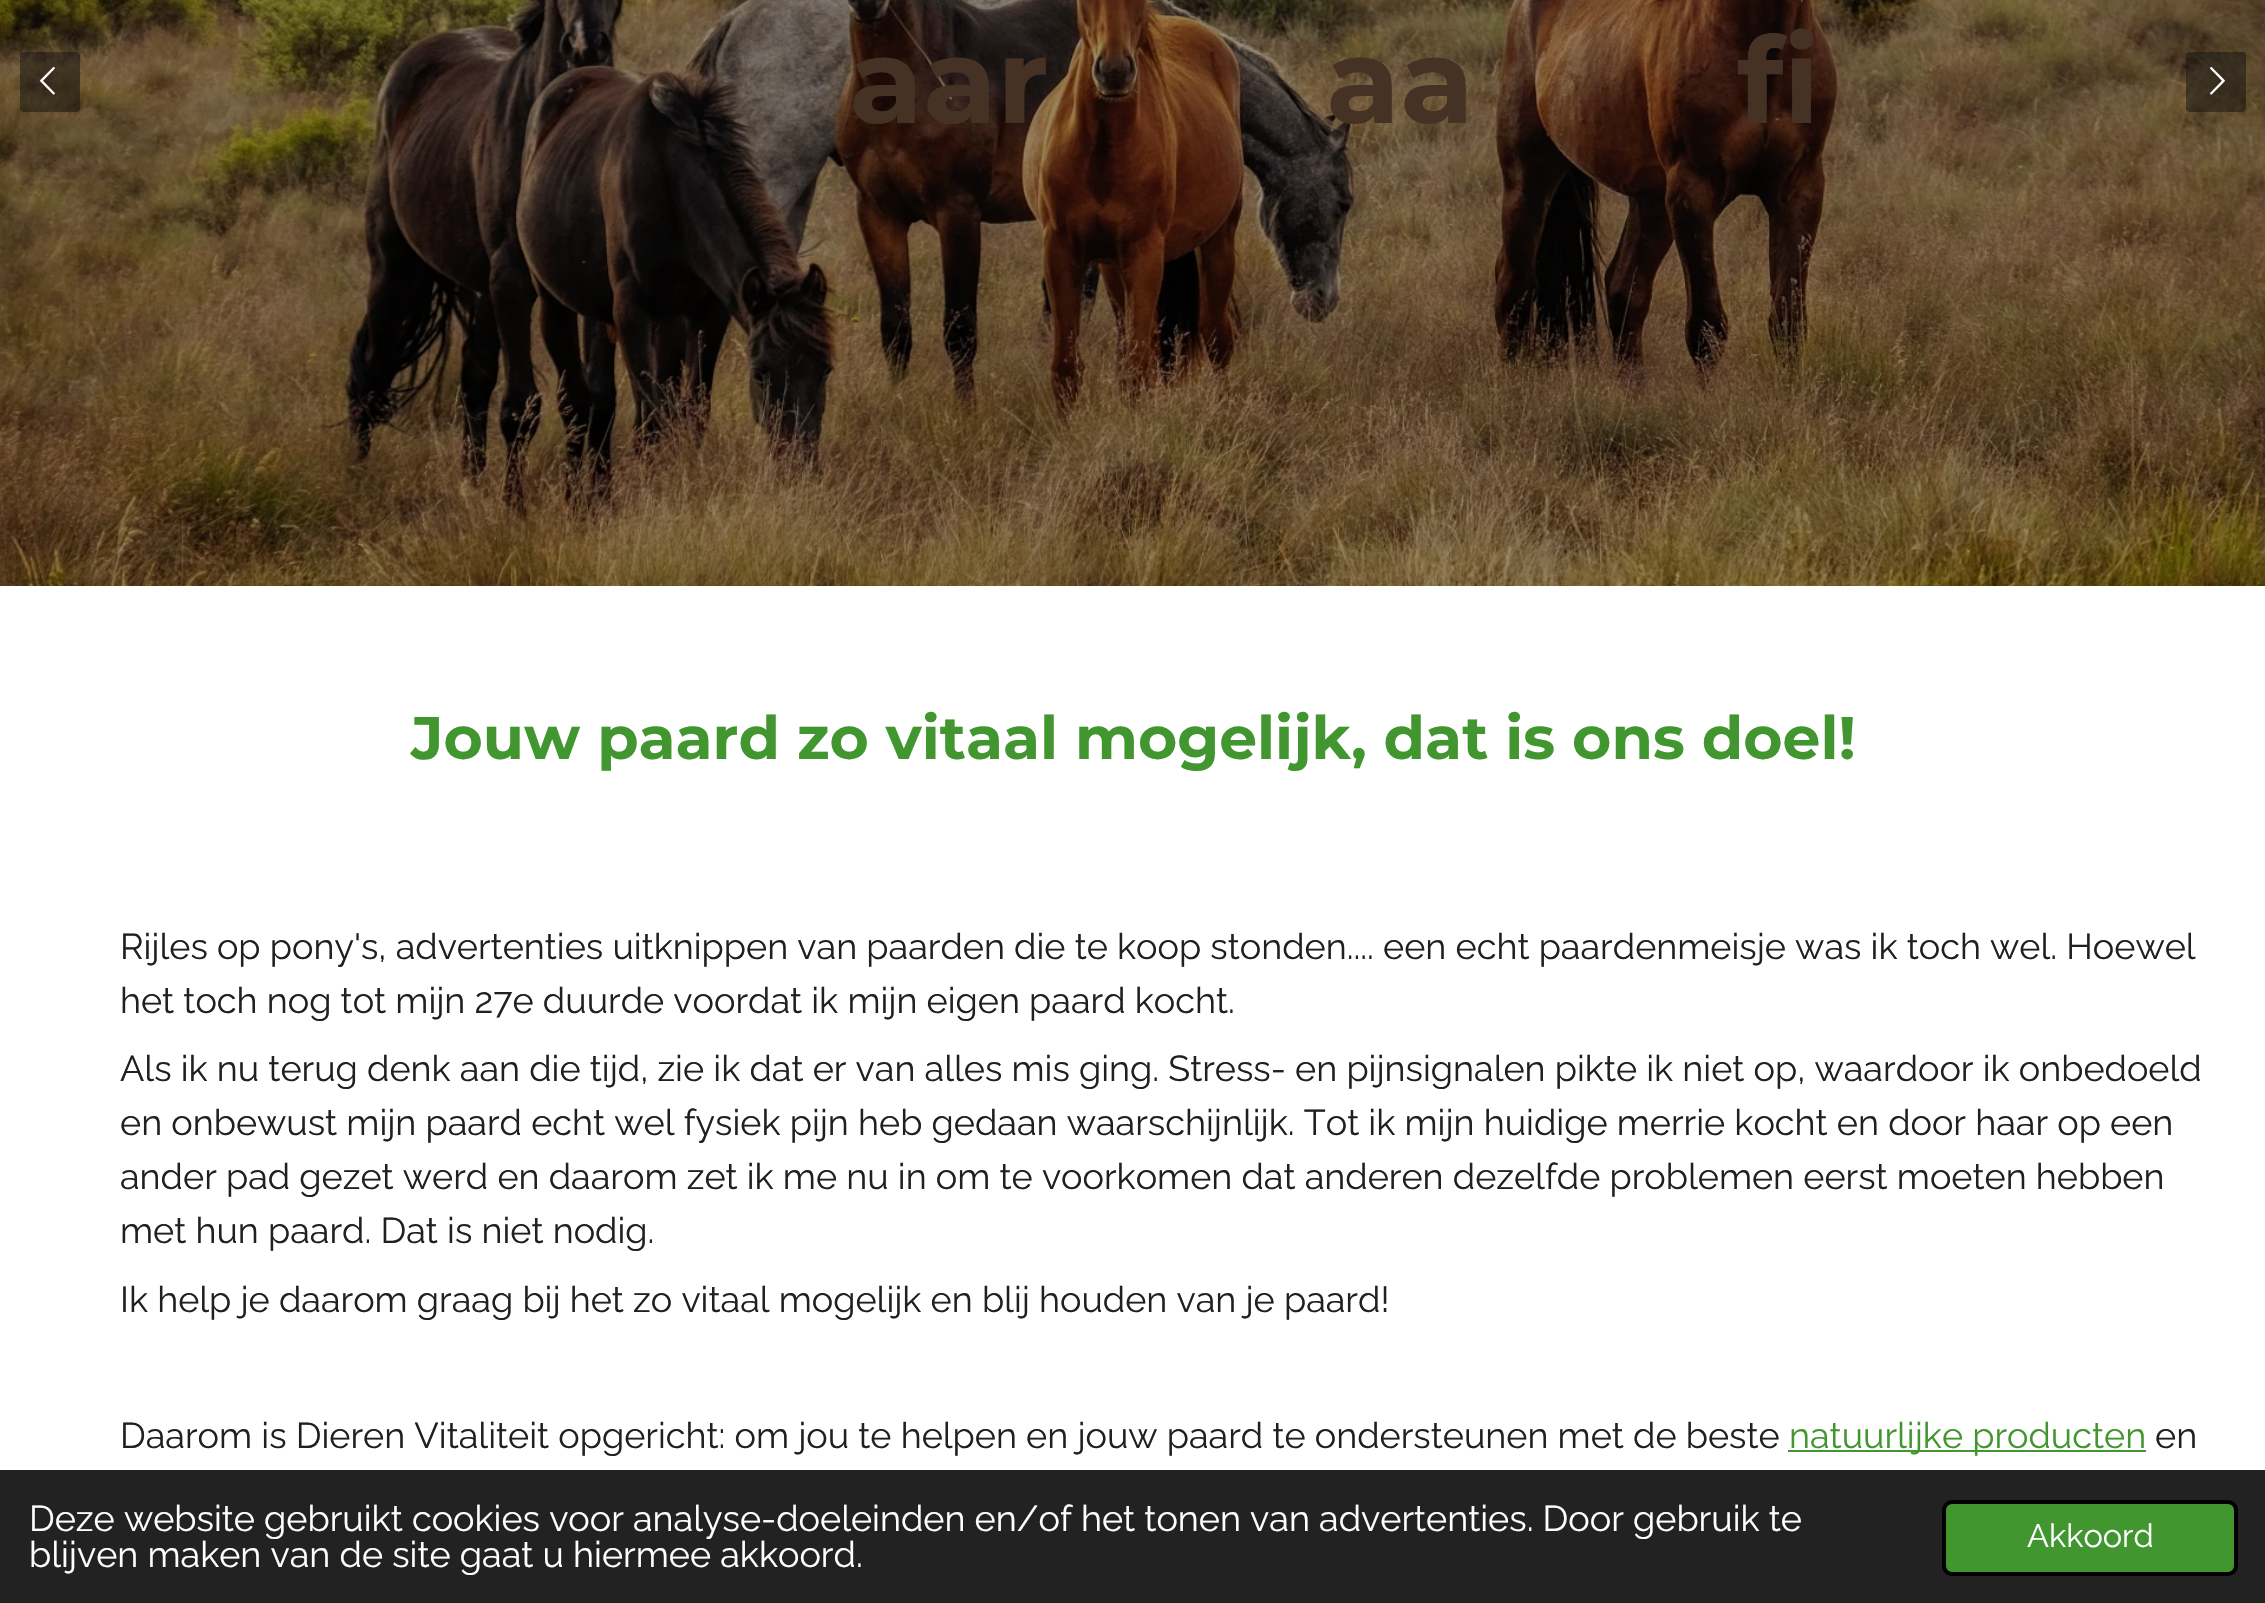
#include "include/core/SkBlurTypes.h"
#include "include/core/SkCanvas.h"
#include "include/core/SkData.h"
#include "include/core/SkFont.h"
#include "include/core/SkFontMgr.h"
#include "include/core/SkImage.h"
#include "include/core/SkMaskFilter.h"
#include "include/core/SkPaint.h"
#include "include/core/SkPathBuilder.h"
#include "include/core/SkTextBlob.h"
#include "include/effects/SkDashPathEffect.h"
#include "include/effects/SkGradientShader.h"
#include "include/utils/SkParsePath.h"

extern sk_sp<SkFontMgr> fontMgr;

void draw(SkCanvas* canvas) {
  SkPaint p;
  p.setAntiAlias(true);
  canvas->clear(SK_ColorWHITE);
  canvas->drawImageRect(SkImages::DeferredFromEncodedData(SkData::MakeFromFileName("images/1.png")), SkRect::MakeLTRB(0, 0, 2265, 586), SkSamplingOptions());
  p.setColor(SkColorSetARGB(128, 15, 15, 15));
  canvas->drawRoundRect(SkRect::MakeLTRB(20, 52, 80, 112), 4, 4, p);
  canvas->drawImageRect(SkImages::DeferredFromEncodedData(SkData::MakeFromFileName("images/2.png")), SkRect::MakeLTRB(40, 67, 55, 95), SkSamplingOptions());
  canvas->drawRoundRect(SkRect::MakeLTRB(2186, 52, 2246, 112), 4, 4, p);
  canvas->drawImageRect(SkImages::DeferredFromEncodedData(SkData::MakeFromFileName("images/3.png")), SkRect::MakeLTRB(2210, 67, 2225, 95), SkSamplingOptions());
  p.setColor(SkColorSetRGB(66, 150, 47));
  canvas->drawRect(SkRect::MakeLTRB(1788, 1450, 2146, 1452), p);
  p.setColor(SkColorSetRGB(34, 34, 34));
  canvas->drawRect(SkRect::MakeLTRB(0, 1470, 2265, 1603), p);
  p.setColor(SkColorSetRGB(66, 150, 47));
  canvas->drawRoundRect(SkRect::MakeLTRB(1944, 1502, 2236, 1574), 8, 8, p);
  p.setStyle(SkPaint::kStroke_Style);
  p.setStrokeWidth(4);
  p.setColor(SK_ColorBLACK);
  canvas->drawRoundRect(SkRect::MakeLTRB(1944, 1502, 2236, 1574), 8, 8, p);
  SkFont font1(fontMgr->matchFamilyStyle("Montserrat", SkFontStyle::Bold()), 120);
  font1.setSubpixel(true);
  p.setStyle(SkPaint::kFill_Style);
  p.setColor(SkColorSetRGB(70, 50, 36));
  canvas->drawString("aar", 849, 123, font1, p);
  canvas->drawString("aa", 1326, 123, font1, p);
  canvas->drawString("fi", 1737, 123, font1, p);
  SkFont font2(fontMgr->matchFamilyStyle("Montserrat", SkFontStyle::Bold()), 60);
  font2.setSubpixel(true);
  p.setColor(SkColorSetRGB(66, 150, 47));
  canvas->drawString("Jouw paard zo vitaal mogelijk, dat is ons doel!", 411, 759, font2, p);
  SkFont font3(fontMgr->matchFamilyStyle("Raleway", SkFontStyle::Normal()), 36);
  font3.setSubpixel(true);
  p.setColor(SkColorSetRGB(32, 32, 32));
  canvas->drawString("Rijles op pony's, advertenties uitknippen van paarden die te koop stonden.... een echt paardenmeisje was ik toch wel. Hoewel", 120, 959, font3, p);
  canvas->drawString("het toch nog tot mijn 27e duurde voordat ik mijn eigen paard kocht.", 120, 1013, font3, p);
  canvas->drawString("Als ik nu terug denk aan die tijd, zie ik dat er van alles mis ging. Stress- en pijnsignalen pikte ik niet op, waardoor ik onbedoeld", 120, 1081, font3, p);
  canvas->drawString("en onbewust mijn paard echt wel fysiek pijn heb gedaan waarschijnlijk. Tot ik mijn huidige merrie kocht en door haar op een", 120, 1135, font3, p);
  canvas->drawString("ander pad gezet werd en daarom zet ik me nu in om te voorkomen dat anderen dezelfde problemen eerst moeten hebben", 120, 1189, font3, p);
  canvas->drawString("met hun paard. Dat is niet nodig.", 120, 1243, font3, p);
  canvas->drawString("Ik help je daarom graag bij het zo vitaal mogelijk en blij houden van je paard!", 120, 1312, font3, p);
  canvas->drawString("Daarom is Dieren Vitaliteit opgericht: om jou te helpen en jouw paard te ondersteunen met de beste", 120, 1448, font3, p);
  p.setColor(SkColorSetRGB(66, 150, 47));
  canvas->drawString("natuurlijke producten", 1789, 1448, font3, p);
  p.setColor(SkColorSetRGB(32, 32, 32));
  canvas->drawString("en", 2155, 1448, font3, p);
  p.setColor(SK_ColorWHITE);
  canvas->drawString("Deze website gebruikt cookies voor analyse-doeleinden en/of het tonen van advertenties. Door gebruik te", 29, 1531, font3, p);
  canvas->drawString("blijven maken van de site gaat u hiermee akkoord.", 29, 1567, font3, p);
  SkFont font4(fontMgr->matchFamilyStyle("Raleway", SkFontStyle::Normal()), 32.5f);
  font4.setSubpixel(true);
  canvas->drawString("Akkoord", 2027, 1547, font4, p);
}
